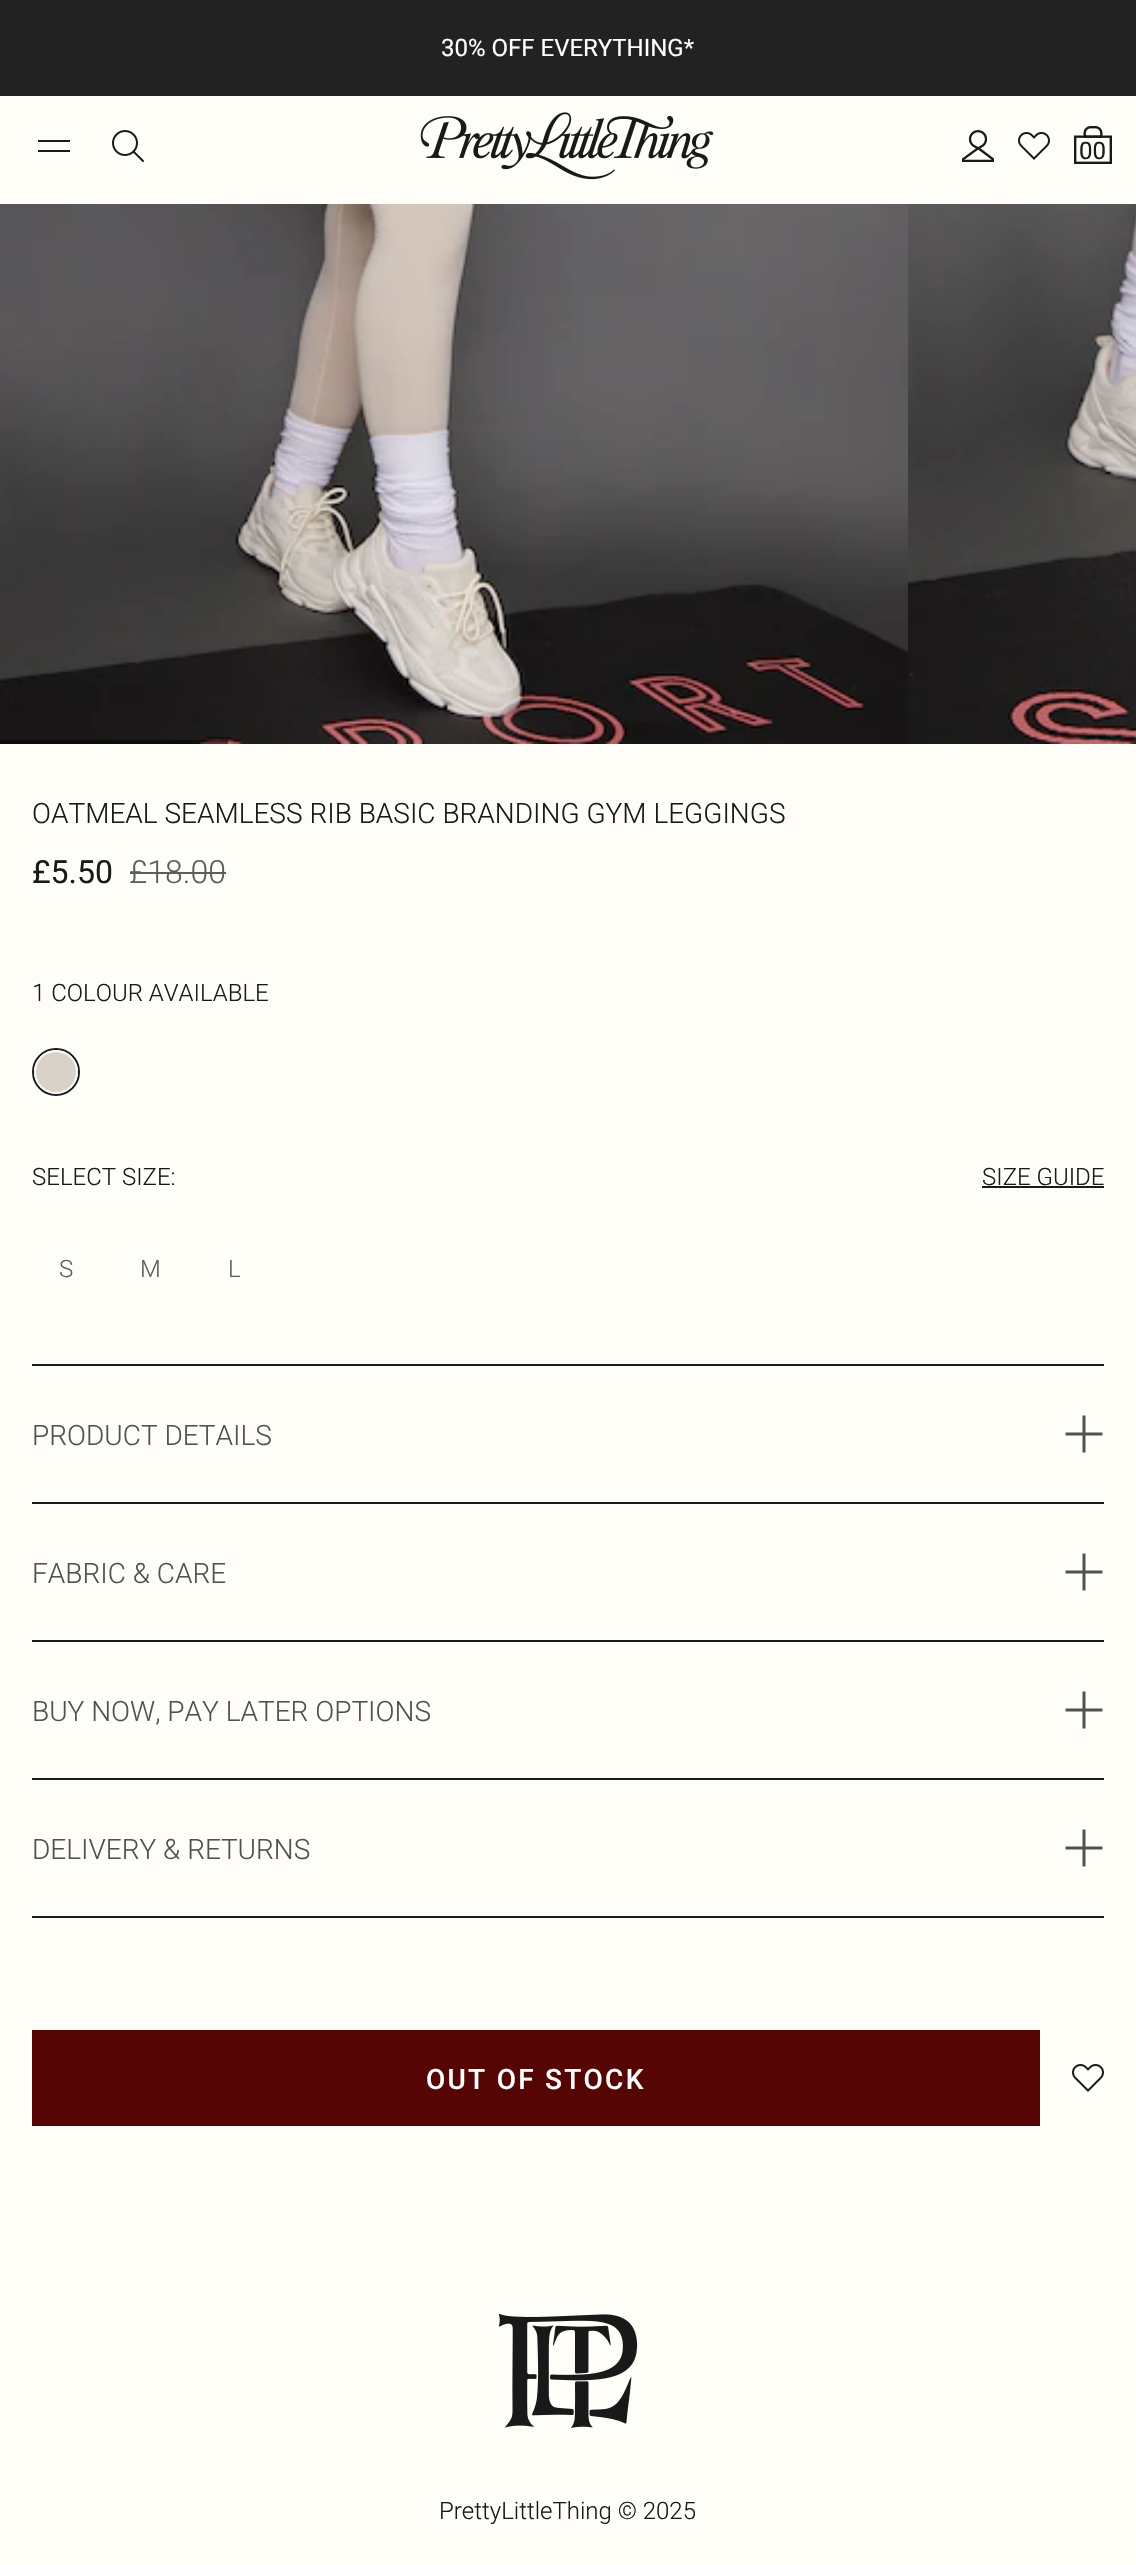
#include "include/core/SkBlurTypes.h"
#include "include/core/SkCanvas.h"
#include "include/core/SkData.h"
#include "include/core/SkFont.h"
#include "include/core/SkFontMgr.h"
#include "include/core/SkImage.h"
#include "include/core/SkMaskFilter.h"
#include "include/core/SkPaint.h"
#include "include/core/SkPathBuilder.h"
#include "include/core/SkTextBlob.h"
#include "include/effects/SkDashPathEffect.h"
#include "include/effects/SkGradientShader.h"
#include "include/utils/SkParsePath.h"

extern sk_sp<SkFontMgr> fontMgr;

void draw(SkCanvas* canvas) {
  SkPaint p;
  p.setAntiAlias(true);
  auto spacedText = [&](const char* s, float x, float y, const SkFont& font, const SkPaint& ink, float letter, float word) {
    std::vector<SkGlyphID> glyphs(font.countText(s, strlen(s), SkTextEncoding::kUTF8));
    std::vector<float> xs(glyphs.size());
    font.textToGlyphs(s, strlen(s), SkTextEncoding::kUTF8, glyphs);
    font.getXPos(glyphs, xs, x);
    float extra = 0;
    for (size_t i = 0; i < glyphs.size(); i++) {
      xs[i] += extra;
      extra += letter + word * (glyphs[i] == font.unicharToGlyph(' '));
    }
    canvas->drawTextBlob(SkTextBlob::MakeFromPosHGlyphs(glyphs, xs, y, font), 0, 0, ink);
  };
  canvas->clear(SkColorSetRGB(255, 253, 247));
  p.setColor(SkColorSetRGB(34, 34, 34));
  canvas->drawRect(SkRect::MakeLTRB(0, 0, 1136, 96), p);
  p.setColor(SkColorSetRGB(25, 25, 25));
  canvas->drawPath(SkPathBuilder().moveTo(38, 140).lineTo(70, 140).lineTo(70, 142).lineTo(38, 142).close().moveTo(70, 150).lineTo(70, 152).lineTo(38, 152).lineTo(38, 150).close().detach(), p);
  canvas->drawImageRect(SkImages::DeferredFromEncodedData(SkData::MakeFromFileName("images/1.png")), SkRect::MakeLTRB(112, 130, 144, 162), SkSamplingOptions());
  canvas->drawImageRect(SkImages::DeferredFromEncodedData(SkData::MakeFromFileName("images/2.png")), SkRect::MakeLTRB(420, 112, 714, 180), SkSamplingOptions());
  canvas->drawImageRect(SkImages::DeferredFromEncodedData(SkData::MakeFromFileName("images/3.png")), SkRect::MakeLTRB(962, 130, 994, 162), SkSamplingOptions());
  canvas->drawImageRect(SkImages::DeferredFromEncodedData(SkData::MakeFromFileName("images/4.png")), SkRect::MakeLTRB(1018, 132, 1050, 160), SkSamplingOptions());
  canvas->drawImageRect(SkImages::DeferredFromEncodedData(SkData::MakeFromFileName("images/5.png")), SkRect::MakeLTRB(1074, 126, 1112, 164), SkSamplingOptions());
  canvas->drawImageRect(SkImages::DeferredFromEncodedData(SkData::MakeFromFileName("images/6.png")), SkRect::MakeLTRB(0, 204, 908, 744), SkSamplingOptions());
  canvas->drawImageRect(SkImages::DeferredFromEncodedData(SkData::MakeFromFileName("images/7.png")), SkRect::MakeLTRB(908, 204, 1136, 744), SkSamplingOptions());
  p.setColor(SkColorSetARGB(128, 0, 0, 0));
  canvas->drawRect(SkRect::MakeLTRB(0, 740, 228, 744), p);
  p.setColor(SkColorSetRGB(93, 93, 93));
  canvas->drawRect(SkRect::MakeLTRB(130, 872, 226, 874), p);
  p.setStyle(SkPaint::kStroke_Style);
  p.setStrokeWidth(2);
  p.setColor(SkColorSetRGB(25, 25, 25));
  canvas->drawCircle(56, 1072, 23, p);
  p.setColor(SkColorSetRGB(250, 250, 250));
  canvas->drawCircle(56, 1072, 21, p);
  canvas->drawImageRect(SkImages::DeferredFromEncodedData(SkData::MakeFromFileName("images/8.png")), SkRect::MakeLTRB(36, 1052, 76, 1092), SkSamplingOptions());
  p.setStyle(SkPaint::kFill_Style);
  p.setColor(SkColorSetRGB(25, 25, 25));
  canvas->drawRect(SkRect::MakeLTRB(982, 1186, 1104, 1188), p);
  canvas->drawRect(SkRect::MakeLTRB(32, 1364, 1104, 1366), p);
  p.setColor(SkColorSetRGB(81, 81, 81));
  canvas->drawPath(SkPathBuilder().moveTo(1085.5f, 1417).lineTo(1085.5f, 1415.5f).lineTo(1082.5f, 1415.5f).lineTo(1082.5f, 1432.5f).lineTo(1065.5f, 1432.5f).lineTo(1065.5f, 1435.5f).lineTo(1082.5f, 1435.5f).lineTo(1082.5f, 1452.5f).lineTo(1085.5f, 1452.5f).lineTo(1085.5f, 1435.5f).lineTo(1102.5f, 1435.5f).lineTo(1102.5f, 1432.5f).lineTo(1085.5f, 1432.5f).close().detach(), p);
  p.setColor(SkColorSetRGB(25, 25, 25));
  canvas->drawRect(SkRect::MakeLTRB(32, 1502, 1104, 1504), p);
  p.setColor(SkColorSetRGB(81, 81, 81));
  canvas->drawPath(SkPathBuilder().moveTo(1085.5f, 1555).lineTo(1085.5f, 1553.5f).lineTo(1082.5f, 1553.5f).lineTo(1082.5f, 1570.5f).lineTo(1065.5f, 1570.5f).lineTo(1065.5f, 1573.5f).lineTo(1082.5f, 1573.5f).lineTo(1082.5f, 1590.5f).lineTo(1085.5f, 1590.5f).lineTo(1085.5f, 1573.5f).lineTo(1102.5f, 1573.5f).lineTo(1102.5f, 1570.5f).lineTo(1085.5f, 1570.5f).close().detach(), p);
  p.setColor(SkColorSetRGB(25, 25, 25));
  canvas->drawRect(SkRect::MakeLTRB(32, 1640, 1104, 1642), p);
  p.setColor(SkColorSetRGB(81, 81, 81));
  canvas->drawPath(SkPathBuilder().moveTo(1085.5f, 1693).lineTo(1085.5f, 1691.5f).lineTo(1082.5f, 1691.5f).lineTo(1082.5f, 1708.5f).lineTo(1065.5f, 1708.5f).lineTo(1065.5f, 1711.5f).lineTo(1082.5f, 1711.5f).lineTo(1082.5f, 1728.5f).lineTo(1085.5f, 1728.5f).lineTo(1085.5f, 1711.5f).lineTo(1102.5f, 1711.5f).lineTo(1102.5f, 1708.5f).lineTo(1085.5f, 1708.5f).close().detach(), p);
  p.setColor(SkColorSetRGB(25, 25, 25));
  canvas->drawRect(SkRect::MakeLTRB(32, 1778, 1104, 1780), p);
  canvas->drawRect(SkRect::MakeLTRB(32, 1916, 1104, 1918), p);
  p.setColor(SkColorSetRGB(81, 81, 81));
  canvas->drawPath(SkPathBuilder().moveTo(1085.5f, 1831).lineTo(1085.5f, 1829.5f).lineTo(1082.5f, 1829.5f).lineTo(1082.5f, 1846.5f).lineTo(1065.5f, 1846.5f).lineTo(1065.5f, 1849.5f).lineTo(1082.5f, 1849.5f).lineTo(1082.5f, 1866.5f).lineTo(1085.5f, 1866.5f).lineTo(1085.5f, 1849.5f).lineTo(1102.5f, 1849.5f).lineTo(1102.5f, 1846.5f).lineTo(1085.5f, 1846.5f).close().detach(), p);
  p.setColor(SkColorSetRGB(85, 5, 3));
  canvas->drawRect(SkRect::MakeLTRB(32, 2030, 1040, 2126), p);
  canvas->drawImageRect(SkImages::DeferredFromEncodedData(SkData::MakeFromFileName("images/4.png")), SkRect::MakeLTRB(1072, 2064, 1104, 2092), SkSamplingOptions());
  canvas->drawImageRect(SkImages::DeferredFromEncodedData(SkData::MakeFromFileName("images/9.png")), SkRect::MakeLTRB(498, 2313, 638, 2428), SkSamplingOptions());
  SkFont font1(fontMgr->matchFamilyStyle("Roboto", SkFontStyle::Normal()), 24);
  font1.setSubpixel(true);
  p.setColor(SK_ColorWHITE);
  canvas->drawString("30% OFF EVERYTHING*", 441, 56, font1, p);
  p.setColor(SkColorSetRGB(25, 25, 25));
  canvas->drawString("00", 1079, 159, font1, p);
  SkFont font2(fontMgr->matchFamilyStyle("Roboto", SkFontStyle(300, SkFontStyle::kNormal_Width, SkFontStyle::kUpright_Slant)), 28);
  font2.setSubpixel(true);
  canvas->drawString("OATMEAL SEAMLESS RIB BASIC BRANDING GYM LEGGINGS", 32, 823, font2, p);
  SkFont font3(fontMgr->matchFamilyStyle("Roboto", SkFontStyle::Normal()), 32);
  font3.setSubpixel(true);
  canvas->drawString("£5.50", 32, 883, font3, p);
  SkFont font4(fontMgr->matchFamilyStyle("Roboto", SkFontStyle(300, SkFontStyle::kNormal_Width, SkFontStyle::kUpright_Slant)), 32);
  font4.setSubpixel(true);
  p.setColor(SkColorSetRGB(93, 93, 93));
  canvas->drawString("£18.00", 129, 883, font4, p);
  SkFont font5(fontMgr->matchFamilyStyle("Roboto", SkFontStyle(300, SkFontStyle::kNormal_Width, SkFontStyle::kUpright_Slant)), 24);
  font5.setSubpixel(true);
  p.setColor(SkColorSetRGB(25, 25, 25));
  canvas->drawString("1 COLOUR AVAILABLE", 32, 1001, font5, p);
  canvas->drawString("SELECT SIZE:", 32, 1185, font5, p);
  canvas->drawString("SIZE GUIDE", 982, 1185, font5, p);
  p.setColor(SkColorSetRGB(93, 93, 93));
  canvas->drawString("S", 59, 1277, font5, p);
  canvas->drawString("M", 140, 1277, font5, p);
  canvas->drawString("L", 228, 1277, font5, p);
  p.setColor(SkColorSetRGB(81, 81, 81));
  canvas->drawString("PRODUCT DETAILS", 32, 1445, font2, p);
  canvas->drawString("FABRIC & CARE", 32, 1583, font2, p);
  canvas->drawString("BUY NOW, PAY LATER OPTIONS", 32, 1721, font2, p);
  canvas->drawString("DELIVERY & RETURNS", 32, 1859, font2, p);
  SkFont font6(fontMgr->matchFamilyStyle("Roboto", SkFontStyle(500, SkFontStyle::kNormal_Width, SkFontStyle::kUpright_Slant)), 28);
  font6.setSubpixel(true);
  p.setColor(SK_ColorWHITE);
  spacedText("OUT OF STOCK", 426, 2089, font6, p, 2.25f, 0);
  p.setColor(SkColorSetRGB(25, 25, 25));
  canvas->drawString("PrettyLittleThing © 2025", 439, 2519, font5, p);
}
